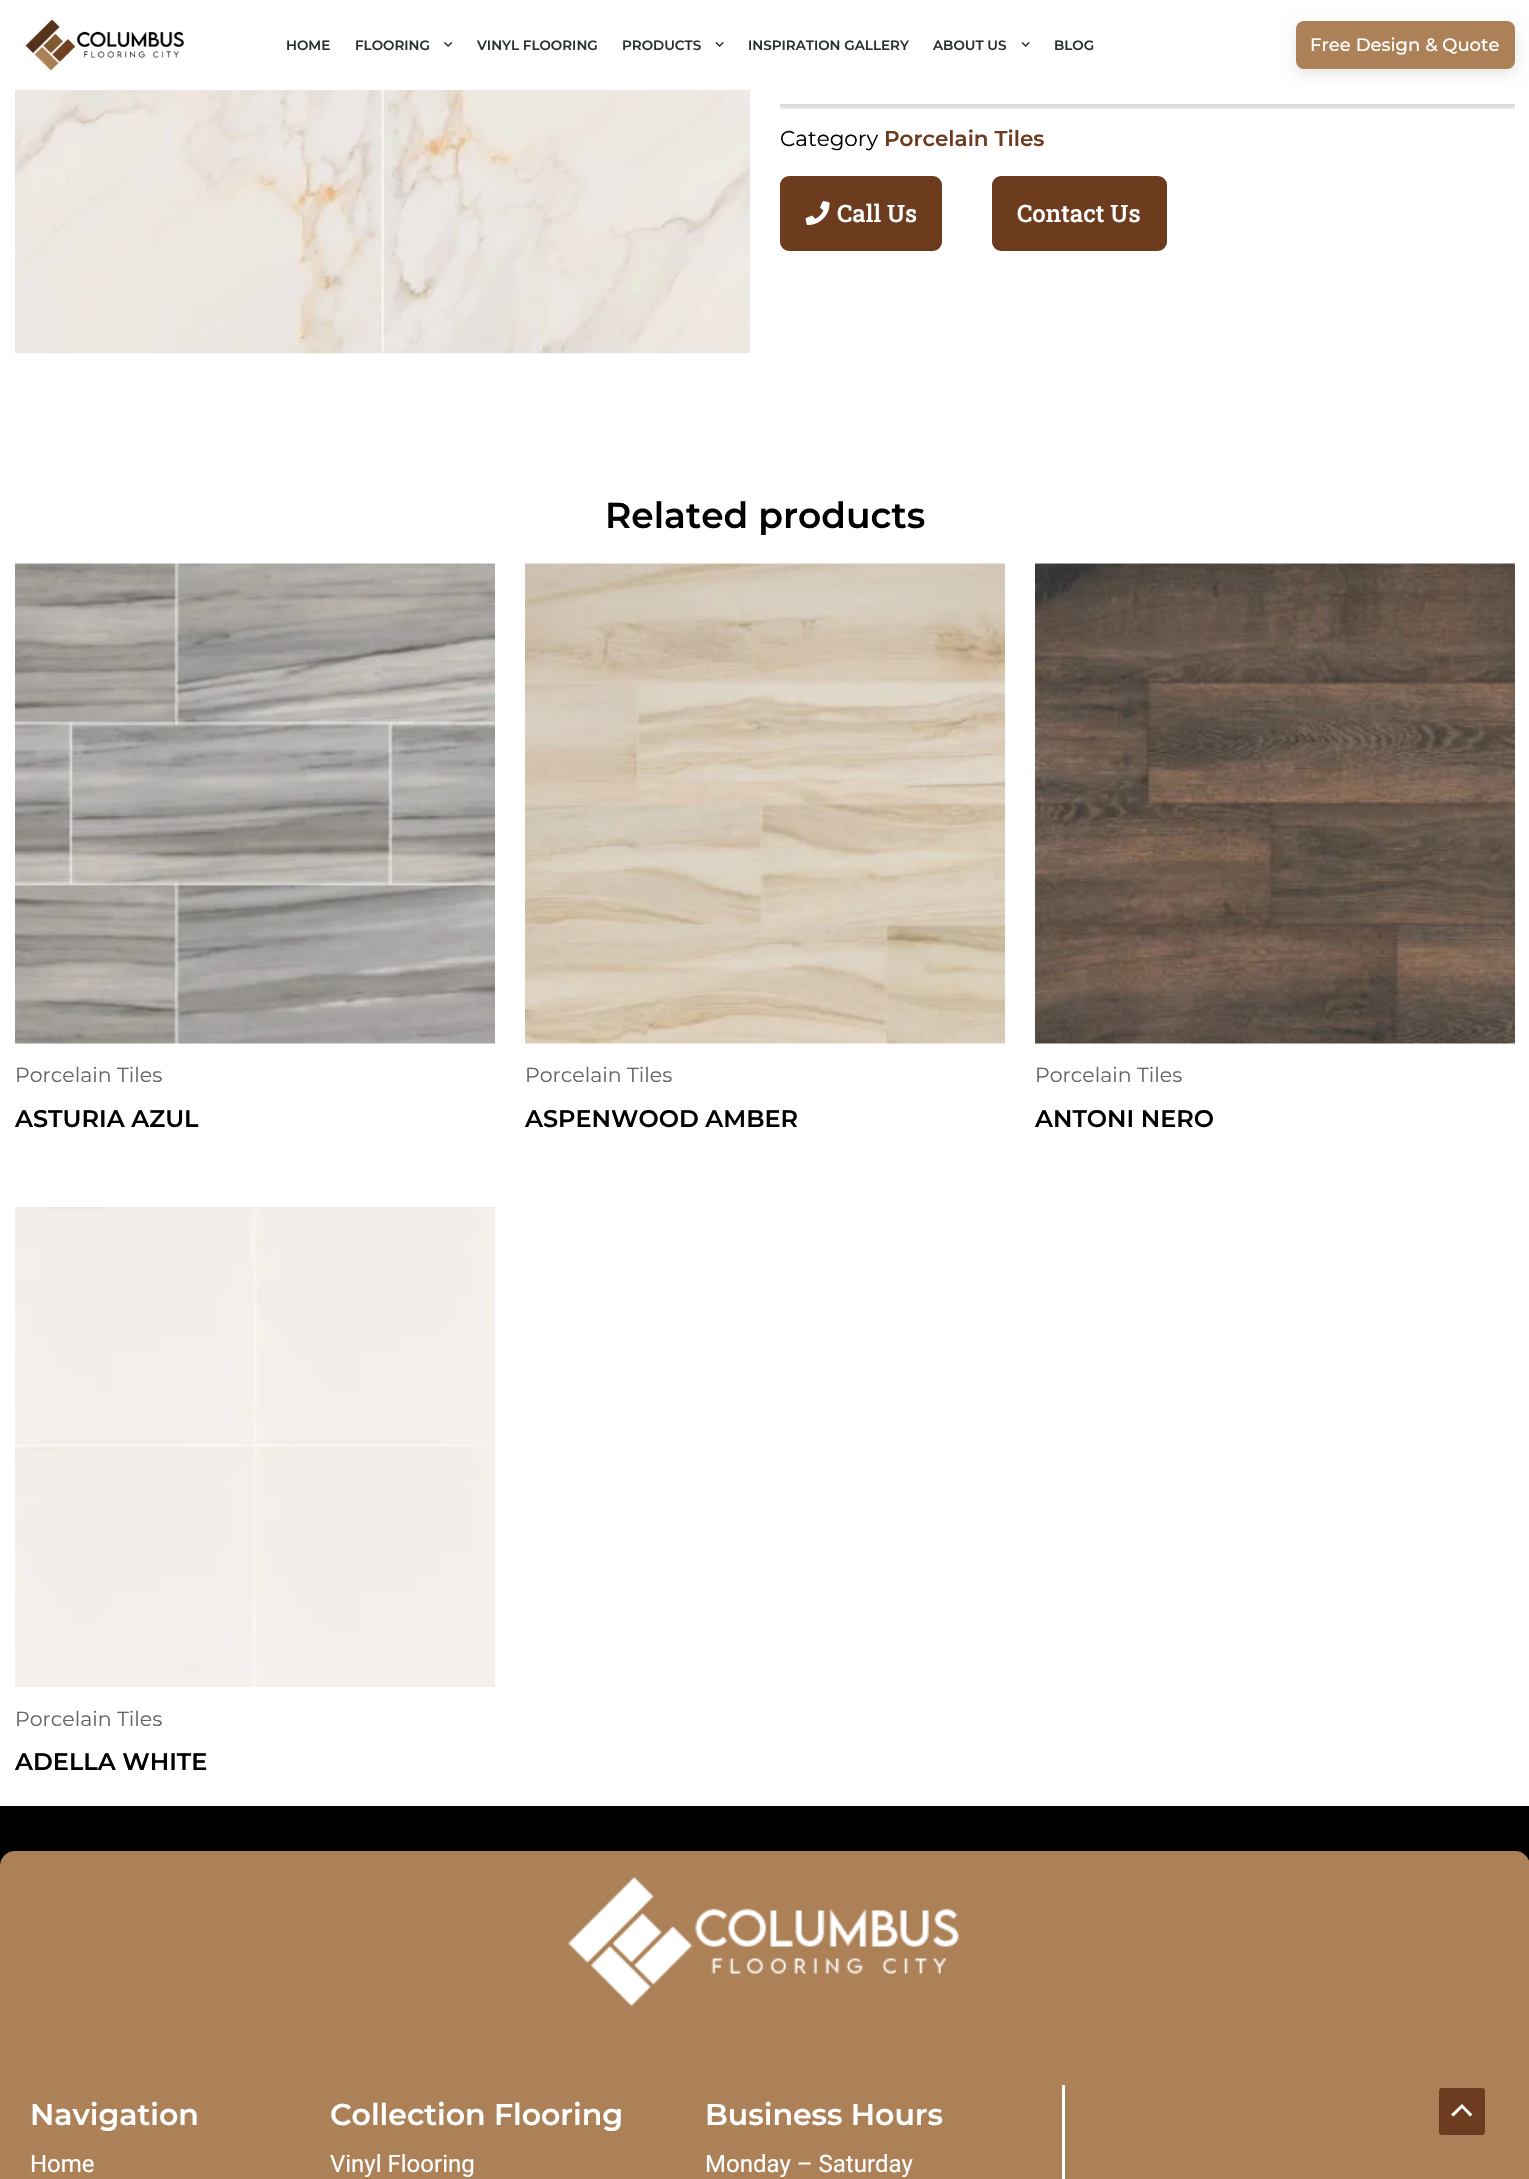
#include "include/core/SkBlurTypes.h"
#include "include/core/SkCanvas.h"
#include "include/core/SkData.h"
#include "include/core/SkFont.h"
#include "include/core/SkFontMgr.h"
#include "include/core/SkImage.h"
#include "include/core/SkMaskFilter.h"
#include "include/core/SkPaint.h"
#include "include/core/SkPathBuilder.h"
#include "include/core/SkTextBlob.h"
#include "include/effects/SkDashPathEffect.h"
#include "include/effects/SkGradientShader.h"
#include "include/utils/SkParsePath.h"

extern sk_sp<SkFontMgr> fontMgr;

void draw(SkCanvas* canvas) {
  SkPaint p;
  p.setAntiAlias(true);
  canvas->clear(SK_ColorWHITE);
  canvas->drawImageRect(SkImages::DeferredFromEncodedData(SkData::MakeFromFileName("images/1.png")), SkRect::MakeLTRB(25, 19, 185, 71), SkSamplingOptions());
  canvas->drawImageRect(SkImages::DeferredFromEncodedData(SkData::MakeFromFileName("images/2.png")), SkRect::MakeLTRB(444, 42, 453, 47), SkSamplingOptions());
  canvas->drawImageRect(SkImages::DeferredFromEncodedData(SkData::MakeFromFileName("images/3.png")), SkRect::MakeLTRB(715, 42, 724, 47), SkSamplingOptions());
  canvas->drawImageRect(SkImages::DeferredFromEncodedData(SkData::MakeFromFileName("images/3.png")), SkRect::MakeLTRB(1021, 42, 1030, 47), SkSamplingOptions());
  p.setColor(SkColorSetARGB(26, 0, 0, 0));
  p.setMaskFilter(SkMaskFilter::MakeBlur(kNormal_SkBlurStyle, 7.5f));
  canvas->drawRoundRect(SkRect::MakeLTRB(1296, 26, 1515, 74), 8, 8, p);
  p.setMaskFilter(nullptr);
  p.setColor(SkColorSetRGB(173, 129, 87));
  canvas->drawRoundRect(SkRect::MakeLTRB(1297.5f, 22.5f, 1513.5f, 67.5f), 6.5f, 6.5f, p);
  p.setStyle(SkPaint::kStroke_Style);
  p.setStrokeWidth(3);
  canvas->drawRoundRect(SkRect::MakeLTRB(1297.5f, 22.5f, 1513.5f, 67.5f), 6.5f, 6.5f, p);
  canvas->drawImageRect(SkImages::DeferredFromEncodedData(SkData::MakeFromFileName("images/4.png")), SkRect::MakeLTRB(15, 90, 750, 354), SkSamplingOptions());
  p.setStyle(SkPaint::kFill_Style);
  p.setColor(SkColorSetRGB(220, 220, 220));
  canvas->drawRect(SkRect::MakeLTRB(780, 104, 1515, 107), p);
  p.setColor(SkColorSetRGB(226, 232, 240));
  canvas->drawRect(SkRect::MakeLTRB(780, 107, 1515, 109), p);
  p.setColor(SkColorSetRGB(109, 59, 30));
  canvas->drawRoundRect(SkRect::MakeLTRB(781.5f, 177.5f, 940.5f, 249.5f), 7.5f, 7.5f, p);
  p.setStyle(SkPaint::kStroke_Style);
  canvas->drawRoundRect(SkRect::MakeLTRB(781.5f, 177.5f, 940.5f, 249.5f), 7.5f, 7.5f, p);
  canvas->drawImageRect(SkImages::DeferredFromEncodedData(SkData::MakeFromFileName("images/5.png")), SkRect::MakeLTRB(805, 201, 830, 225), SkSamplingOptions());
  p.setStyle(SkPaint::kFill_Style);
  canvas->drawRoundRect(SkRect::MakeLTRB(993.5f, 177.5f, 1165.5f, 249.5f), 7.5f, 7.5f, p);
  p.setStyle(SkPaint::kStroke_Style);
  canvas->drawRoundRect(SkRect::MakeLTRB(993.5f, 177.5f, 1165.5f, 249.5f), 7.5f, 7.5f, p);
  canvas->drawImageRect(SkImages::DeferredFromEncodedData(SkData::MakeFromFileName("images/6.png")), SkRect::MakeLTRB(15, 563, 495, 1044), SkSamplingOptions());
  canvas->drawImageRect(SkImages::DeferredFromEncodedData(SkData::MakeFromFileName("images/7.png")), SkRect::MakeLTRB(525, 563, 1005, 1044), SkSamplingOptions());
  canvas->drawImageRect(SkImages::DeferredFromEncodedData(SkData::MakeFromFileName("images/8.png")), SkRect::MakeLTRB(1035, 563, 1515, 1044), SkSamplingOptions());
  canvas->drawImageRect(SkImages::DeferredFromEncodedData(SkData::MakeFromFileName("images/9.png")), SkRect::MakeLTRB(15, 1207, 495, 1687), SkSamplingOptions());
  p.setStyle(SkPaint::kFill_Style);
  p.setColor(SK_ColorBLACK);
  canvas->drawRect(SkRect::MakeLTRB(0, 1806, 1529, 1866), p);
  p.setColor(SkColorSetRGB(173, 129, 87));
  canvas->drawRoundRect(SkRect::MakeLTRB(0, 1851, 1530, 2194), 15, 15, p);
  canvas->drawImageRect(SkImages::DeferredFromEncodedData(SkData::MakeFromFileName("images/10.png")), SkRect::MakeLTRB(568, 1877, 959, 2007), SkSamplingOptions());
  p.setColor(SK_ColorWHITE);
  canvas->drawRect(SkRect::MakeLTRB(1062, 2085, 1065, 2179), p);
  p.setColor(SkColorSetRGB(109, 59, 31));
  canvas->drawRoundRect(SkRect::MakeLTRB(1439, 2088, 1485, 2135), 3, 3, p);
  p.setColor(SK_ColorWHITE);
  canvas->drawPath(SkPathBuilder().moveTo(1472.5f, 2114.5f).lineTo(1462, 2104).lineTo(1451, 2114.5f).lineTo(1453.5f, 2116.5f).lineTo(1462, 2108).lineTo(1470, 2116.5f).close().detach(), p);
  SkFont font1(fontMgr->matchFamilyStyle("Montserrat", SkFontStyle(600, SkFontStyle::kNormal_Width, SkFontStyle::kUpright_Slant)), 13.5f);
  font1.setSubpixel(true);
  p.setColor(SkColorSetRGB(42, 48, 47));
  canvas->drawString("HOME", 286, 50, font1, p);
  canvas->drawString("FLOORING", 355, 50, font1, p);
  canvas->drawString("VINYL FLOORING", 477, 50, font1, p);
  canvas->drawString("PRODUCTS", 622, 50, font1, p);
  canvas->drawString("INSPIRATION GALLERY", 748, 50, font1, p);
  canvas->drawString("ABOUT US", 933, 50, font1, p);
  canvas->drawString("BLOG", 1054, 50, font1, p);
  SkFont font2(fontMgr->matchFamilyStyle("Montserrat", SkFontStyle(500, SkFontStyle::kNormal_Width, SkFontStyle::kUpright_Slant)), 18);
  font2.setSubpixel(true);
  p.setColor(SK_ColorWHITE);
  canvas->drawString("Free Design & Quote", 1310, 51, font2, p);
  SkFont font3(fontMgr->matchFamilyStyle("Montserrat", SkFontStyle::Normal()), 21.5f);
  font3.setSubpixel(true);
  p.setColor(SK_ColorBLACK);
  canvas->drawString("Category", 780, 146, font3, p);
  SkFont font4(fontMgr->matchFamilyStyle("Montserrat", SkFontStyle(600, SkFontStyle::kNormal_Width, SkFontStyle::kUpright_Slant)), 21.5f);
  font4.setSubpixel(true);
  p.setColor(SkColorSetRGB(109, 59, 31));
  canvas->drawString("Porcelain Tiles", 884, 146, font4, p);
  SkFont font5(fontMgr->matchFamilyStyle("Roboto Slab", SkFontStyle(500, SkFontStyle::kNormal_Width, SkFontStyle::kUpright_Slant)), 24);
  font5.setSubpixel(true);
  p.setColor(SK_ColorWHITE);
  canvas->drawString("Call Us", 837, 222, font5, p);
  canvas->drawString("Contact Us", 1017, 222, font5, p);
  SkFont font6(fontMgr->matchFamilyStyle("Montserrat", SkFontStyle(600, SkFontStyle::kNormal_Width, SkFontStyle::kUpright_Slant)), 36);
  font6.setSubpixel(true);
  p.setColor(SK_ColorBLACK);
  canvas->drawString("Related products", 605, 528, font6, p);
  SkFont font7(fontMgr->matchFamilyStyle("Montserrat", SkFontStyle::Normal()), 20.5f);
  font7.setSubpixel(true);
  p.setColor(SkColorSetRGB(102, 102, 102));
  canvas->drawString("Porcelain Tiles", 15, 1082, font7, p);
  SkFont font8(fontMgr->matchFamilyStyle("Montserrat", SkFontStyle(600, SkFontStyle::kNormal_Width, SkFontStyle::kUpright_Slant)), 24);
  font8.setSubpixel(true);
  p.setColor(SK_ColorBLACK);
  canvas->drawString("ASTURIA AZUL", 15, 1127, font8, p);
  p.setColor(SkColorSetRGB(102, 102, 102));
  canvas->drawString("Porcelain Tiles", 525, 1082, font7, p);
  p.setColor(SK_ColorBLACK);
  canvas->drawString("ASPENWOOD AMBER", 525, 1127, font8, p);
  p.setColor(SkColorSetRGB(102, 102, 102));
  canvas->drawString("Porcelain Tiles", 1035, 1082, font7, p);
  p.setColor(SK_ColorBLACK);
  canvas->drawString("ANTONI NERO", 1035, 1127, font8, p);
  p.setColor(SkColorSetRGB(102, 102, 102));
  canvas->drawString("Porcelain Tiles", 15, 1726, font7, p);
  p.setColor(SK_ColorBLACK);
  canvas->drawString("ADELLA WHITE", 15, 1770, font8, p);
  SkFont font9(fontMgr->matchFamilyStyle("Montserrat", SkFontStyle(600, SkFontStyle::kNormal_Width, SkFontStyle::kUpright_Slant)), 30);
  font9.setSubpixel(true);
  p.setColor(SK_ColorWHITE);
  canvas->drawString("Navigation", 30, 2125, font9, p);
  SkFont font10(fontMgr->matchFamilyStyle("Roboto", SkFontStyle::Normal()), 24);
  font10.setSubpixel(true);
  canvas->drawString("Home", 30, 2172, font10, p);
  canvas->drawString("Collection Flooring", 330, 2125, font9, p);
  canvas->drawString("Vinyl Flooring", 330, 2172, font10, p);
  canvas->drawString("Business Hours", 705, 2125, font9, p);
  canvas->drawString("Monday – Saturday", 705, 2172, font10, p);
}
